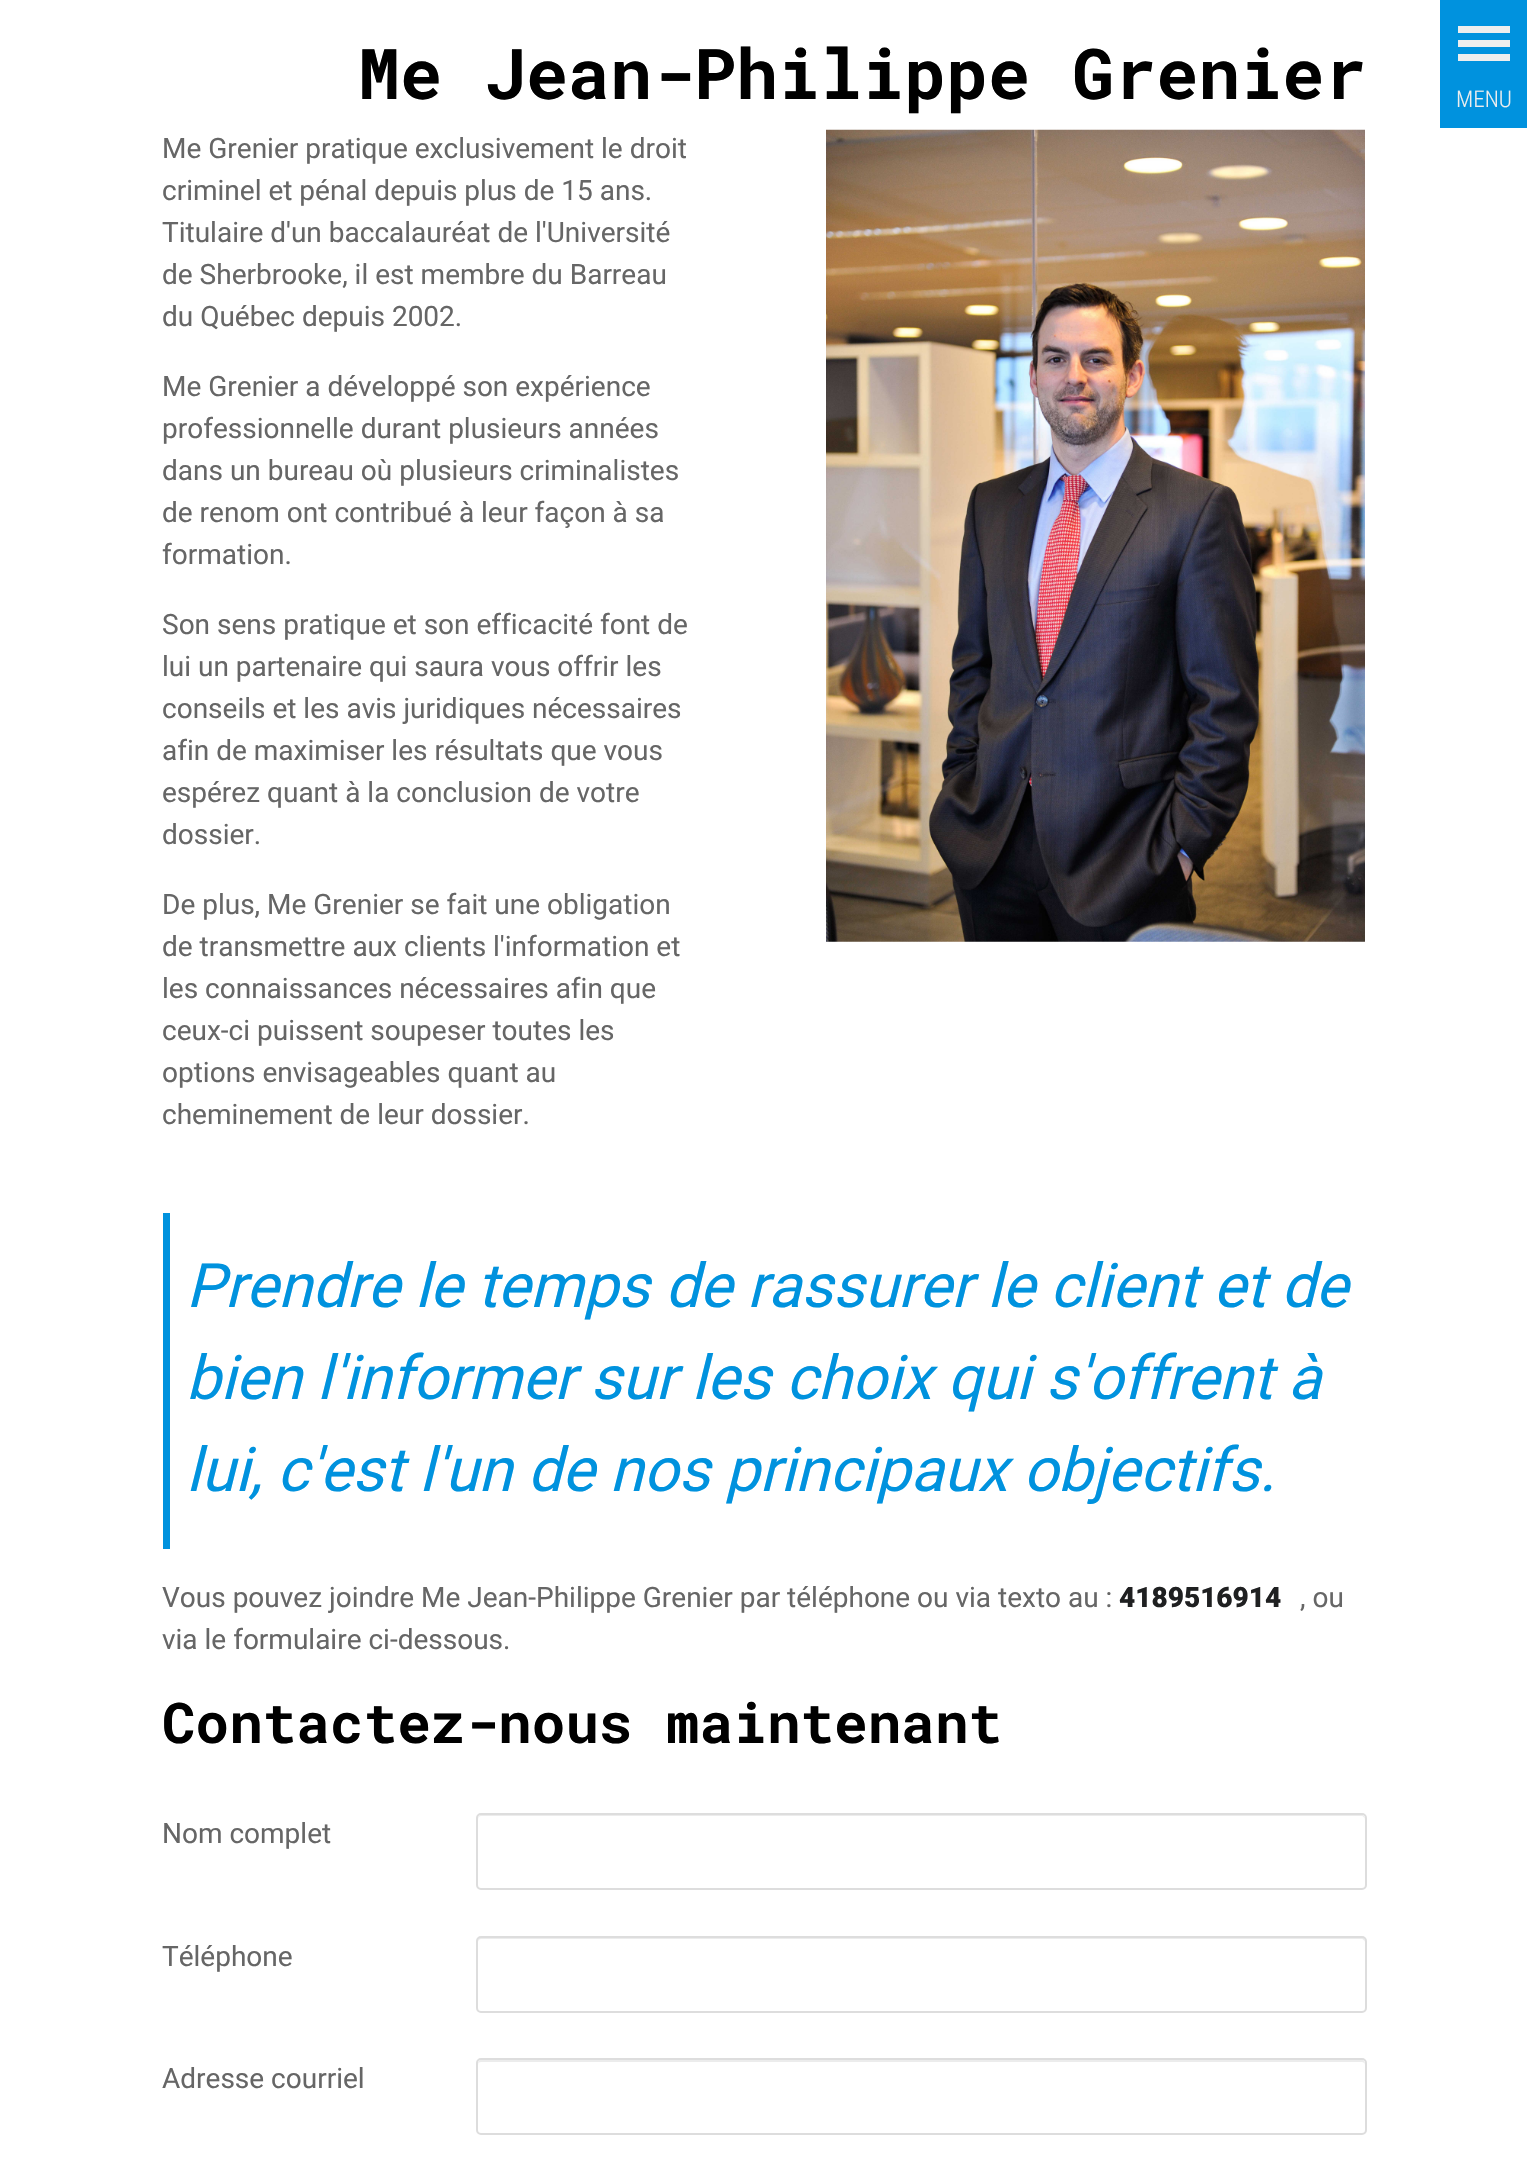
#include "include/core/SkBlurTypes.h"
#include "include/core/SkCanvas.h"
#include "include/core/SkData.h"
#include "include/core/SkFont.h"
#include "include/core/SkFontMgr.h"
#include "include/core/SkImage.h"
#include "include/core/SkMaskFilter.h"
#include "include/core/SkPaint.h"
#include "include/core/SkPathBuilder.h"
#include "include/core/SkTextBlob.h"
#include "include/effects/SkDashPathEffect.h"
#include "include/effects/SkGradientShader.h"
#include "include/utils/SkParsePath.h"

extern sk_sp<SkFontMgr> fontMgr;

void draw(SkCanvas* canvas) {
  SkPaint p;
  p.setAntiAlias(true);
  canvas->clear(SK_ColorWHITE);
  canvas->drawImageRect(SkImages::DeferredFromEncodedData(SkData::MakeFromFileName("images/1.png")), SkRect::MakeLTRB(826, 129, 1365, 942), SkSamplingOptions());
  p.setColor(SkColorSetRGB(0, 146, 222));
  canvas->drawRect(SkRect::MakeLTRB(163, 1213, 170, 1549), p);
  p.setColor(SkColorSetRGB(236, 236, 236));
  canvas->drawPath(SkPathBuilder().moveTo(481, 1816).lineTo(1362, 1816).cubicTo(1363, 1816, 1365, 1818, 1365, 1820).cubicTo(1365, 1817, 1364, 1815, 1361, 1815).lineTo(482, 1815).cubicTo(479, 1815, 478, 1817, 478, 1820).cubicTo(478, 1818, 479, 1816, 481, 1816).close().detach(), p);
  p.setStyle(SkPaint::kStroke_Style);
  p.setStrokeWidth(2);
  p.setColor(SkColorSetRGB(221, 221, 221));
  canvas->drawRoundRect(SkRect::MakeLTRB(477, 1814, 1366, 1889), 4, 4, p);
  p.setStyle(SkPaint::kFill_Style);
  p.setColor(SkColorSetRGB(236, 236, 236));
  canvas->drawPath(SkPathBuilder().moveTo(481, 1939).lineTo(1362, 1939).cubicTo(1363, 1939, 1365, 1941, 1365, 1942).cubicTo(1365, 1939, 1364, 1937, 1361, 1937).lineTo(482, 1937).cubicTo(479, 1937, 478, 1939, 478, 1942).cubicTo(478, 1941, 479, 1939, 481, 1939).close().detach(), p);
  p.setStyle(SkPaint::kStroke_Style);
  p.setColor(SkColorSetRGB(221, 221, 221));
  canvas->drawRoundRect(SkRect::MakeLTRB(477, 1937, 1366, 2012), 4, 4, p);
  p.setStyle(SkPaint::kFill_Style);
  p.setColor(SkColorSetRGB(236, 236, 236));
  canvas->drawPath(SkPathBuilder().moveTo(481, 2062).lineTo(1362, 2062).cubicTo(1363, 2062, 1365, 2063, 1365, 2065).cubicTo(1365, 2062, 1364, 2060, 1361, 2060).lineTo(482, 2060).cubicTo(479, 2060, 478, 2062, 478, 2065).cubicTo(478, 2063, 479, 2062, 481, 2062).close().detach(), p);
  p.setStyle(SkPaint::kStroke_Style);
  p.setColor(SkColorSetRGB(221, 221, 221));
  canvas->drawRoundRect(SkRect::MakeLTRB(477, 2059, 1366, 2134), 4, 4, p);
  p.setStyle(SkPaint::kFill_Style);
  p.setColor(SkColorSetRGB(0, 146, 222));
  canvas->drawRect(SkRect::MakeLTRB(1440, 0, 1527, 128), p);
  p.setColor(SkColorSetRGB(238, 238, 238));
  canvas->drawRect(SkRect::MakeLTRB(1458, 26, 1510, 33), p);
  canvas->drawRect(SkRect::MakeLTRB(1458, 40, 1510, 47), p);
  canvas->drawRect(SkRect::MakeLTRB(1458, 54, 1510, 61), p);
  SkFont font1(fontMgr->matchFamilyStyle("Roboto Mono", SkFontStyle::Bold()), 70);
  font1.setSubpixel(true);
  p.setColor(SK_ColorBLACK);
  canvas->drawString("Me Jean-Philippe Grenier", 358, 99, font1, p);
  SkFont font2(fontMgr->matchFamilyStyle("Roboto", SkFontStyle::Normal()), 28);
  font2.setSubpixel(true);
  p.setColor(SkColorSetRGB(102, 102, 102));
  canvas->drawString("Me Grenier pratique exclusivement le droit", 162, 158, font2, p);
  canvas->drawString("criminel et pénal depuis plus de 15 ans.", 162, 200, font2, p);
  canvas->drawString("Titulaire d'un baccalauréat de l'Université", 162, 242, font2, p);
  canvas->drawString("de Sherbrooke, il est membre du Barreau", 162, 284, font2, p);
  canvas->drawString("du Québec depuis 2002.", 162, 326, font2, p);
  canvas->drawString("Me Grenier a développé son expérience", 162, 396, font2, p);
  canvas->drawString("professionnelle durant plusieurs années", 162, 438, font2, p);
  canvas->drawString("dans un bureau où plusieurs criminalistes", 162, 480, font2, p);
  canvas->drawString("de renom ont contribué à leur façon à sa", 162, 522, font2, p);
  canvas->drawString("formation.", 162, 564, font2, p);
  canvas->drawString("Son sens pratique et son efficacité font de", 162, 634, font2, p);
  canvas->drawString("lui un partenaire qui saura vous offrir les", 162, 676, font2, p);
  canvas->drawString("conseils et les avis juridiques nécessaires", 162, 718, font2, p);
  canvas->drawString("afin de maximiser les résultats que vous", 162, 760, font2, p);
  canvas->drawString("espérez quant à la conclusion de votre", 162, 802, font2, p);
  canvas->drawString("dossier.", 162, 844, font2, p);
  canvas->drawString("De plus, Me Grenier se fait une obligation", 162, 914, font2, p);
  canvas->drawString("de transmettre aux clients l'information et", 162, 956, font2, p);
  canvas->drawString("les connaissances nécessaires afin que", 162, 998, font2, p);
  canvas->drawString("ceux-ci puissent soupeser toutes les", 162, 1040, font2, p);
  canvas->drawString("options envisageables quant au", 162, 1082, font2, p);
  canvas->drawString("cheminement de leur dossier.", 162, 1124, font2, p);
  SkFont font3(fontMgr->matchFamilyStyle("Roboto", SkFontStyle::Italic()), 61.25f);
  font3.setSubpixel(true);
  p.setColor(SkColorSetRGB(0, 146, 222));
  canvas->drawString("Prendre le temps de rassurer le client et de", 186, 1307, font3, p);
  canvas->drawString("bien l'informer sur les choix qui s'offrent à", 186, 1399, font3, p);
  canvas->drawString("lui, c'est l'un de nos principaux objectifs.", 186, 1491, font3, p);
  p.setColor(SkColorSetRGB(102, 102, 102));
  canvas->drawString("Vous pouvez joindre Me Jean-Philippe Grenier par téléphone ou via texto au :", 162, 1607, font2, p);
  SkFont font4(fontMgr->matchFamilyStyle("Roboto", SkFontStyle(900, SkFontStyle::kNormal_Width, SkFontStyle::kUpright_Slant)), 28);
  font4.setSubpixel(true);
  p.setColor(SkColorSetRGB(31, 32, 33));
  canvas->drawString("418‑951‑6914", 1119, 1607, font4, p);
  p.setColor(SkColorSetRGB(102, 102, 102));
  canvas->drawString(", ou", 1300, 1607, font2, p);
  canvas->drawString("via le formulaire ci-dessous.", 162, 1649, font2, p);
  SkFont font5(fontMgr->matchFamilyStyle("Roboto Mono", SkFontStyle::Bold()), 56);
  font5.setSubpixel(true);
  p.setColor(SK_ColorBLACK);
  canvas->drawString("Contactez-nous maintenant", 162, 1743, font5, p);
  p.setColor(SkColorSetRGB(102, 102, 102));
  canvas->drawString("Nom complet", 162, 1843, font2, p);
  canvas->drawString("Téléphone", 162, 1966, font2, p);
  canvas->drawString("Adresse courriel", 162, 2088, font2, p);
  SkFont font6(fontMgr->matchFamilyStyle("Roboto Condensed", SkFontStyle(300, SkFontStyle::kNormal_Width, SkFontStyle::kUpright_Slant)), 23);
  font6.setSubpixel(true);
  p.setColor(SkColorSetRGB(238, 238, 238));
  canvas->drawString("MENU", 1456, 107, font6, p);
}
